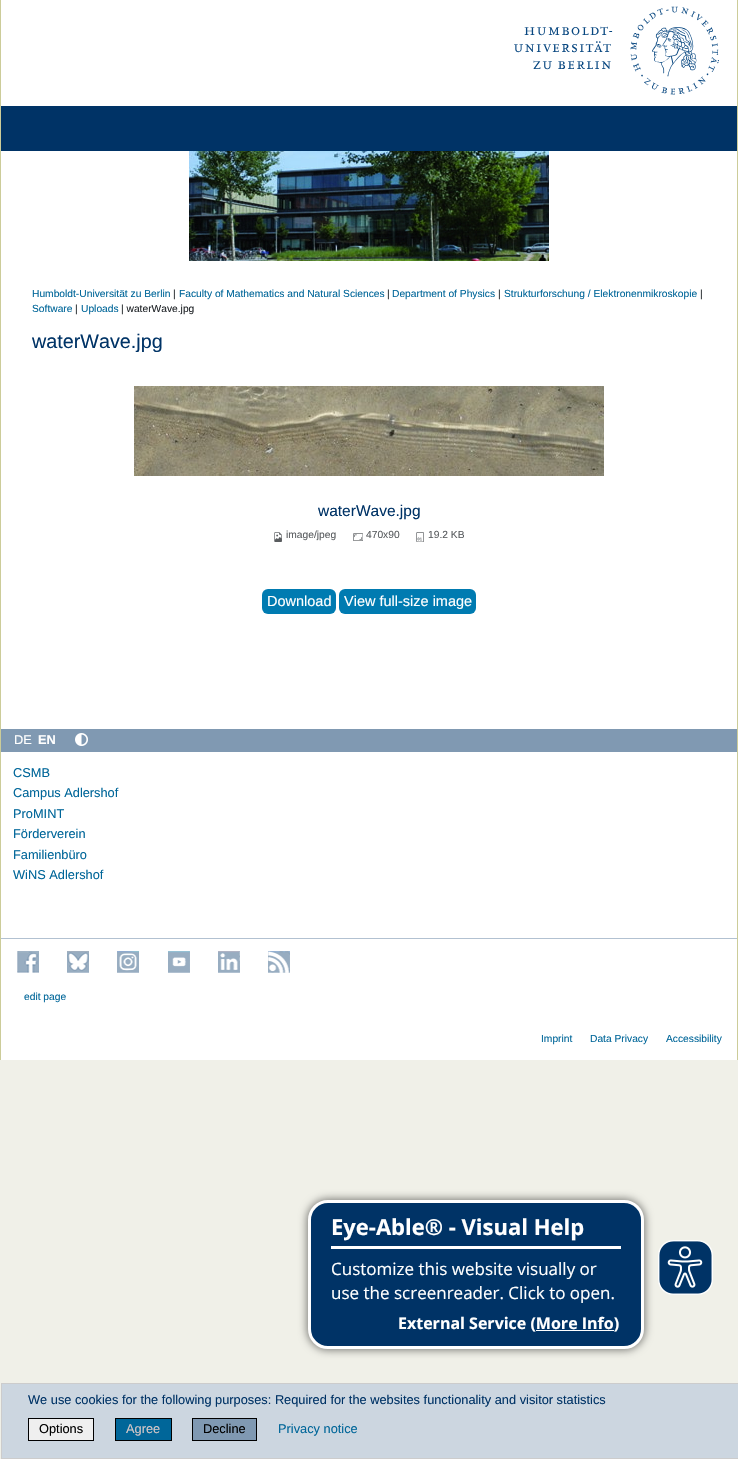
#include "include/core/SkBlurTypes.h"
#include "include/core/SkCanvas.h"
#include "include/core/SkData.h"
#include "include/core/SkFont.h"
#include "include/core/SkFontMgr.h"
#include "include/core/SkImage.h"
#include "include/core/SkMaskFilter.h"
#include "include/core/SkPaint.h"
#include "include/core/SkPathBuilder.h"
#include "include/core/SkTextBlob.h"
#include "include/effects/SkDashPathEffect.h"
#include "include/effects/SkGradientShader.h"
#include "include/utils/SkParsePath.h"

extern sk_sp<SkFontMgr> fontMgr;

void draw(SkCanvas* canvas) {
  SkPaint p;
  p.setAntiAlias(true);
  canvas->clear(SkColorSetRGB(240, 240, 232));
  p.setColor(SK_ColorWHITE);
  canvas->drawRect(SkRect::MakeLTRB(1, 0, 737, 1060), p);
  canvas->drawImageRect(SkImages::DeferredFromEncodedData(SkData::MakeFromFileName("images/1.png")), SkRect::MakeLTRB(514, 6, 719, 95), SkSamplingOptions());
  p.setColor(SkColorSetRGB(0, 51, 102));
  canvas->drawRect(SkRect::MakeLTRB(1, 106, 737, 151), p);
  canvas->drawImageRect(SkImages::DeferredFromEncodedData(SkData::MakeFromFileName("images/2.png")), SkRect::MakeLTRB(189, 151, 549, 261), SkSamplingOptions());
  p.setColor(SkColorSetRGB(204, 204, 153));
  canvas->drawRect(SkRect::MakeLTRB(737, 0, 738, 1060), p);
  canvas->drawRect(SkRect::MakeLTRB(0, 0, 1, 1060), p);
  canvas->drawImageRect(SkImages::DeferredFromEncodedData(SkData::MakeFromFileName("images/3.png")), SkRect::MakeLTRB(134, 386, 604, 476), SkSamplingOptions());
  canvas->drawImageRect(SkImages::DeferredFromEncodedData(SkData::MakeFromFileName("images/4.png")), SkRect::MakeLTRB(274, 532, 282, 542), SkSamplingOptions());
  canvas->drawImageRect(SkImages::DeferredFromEncodedData(SkData::MakeFromFileName("images/5.png")), SkRect::MakeLTRB(353, 533, 363, 541), SkSamplingOptions());
  canvas->drawImageRect(SkImages::DeferredFromEncodedData(SkData::MakeFromFileName("images/6.png")), SkRect::MakeLTRB(416, 532, 424, 542), SkSamplingOptions());
  p.setColor(SkColorSetRGB(0, 123, 177));
  canvas->drawRoundRect(SkRect::MakeLTRB(262, 589, 336, 614), 6, 6, p);
  canvas->drawRoundRect(SkRect::MakeLTRB(339, 589, 476, 614), 6, 6, p);
  p.setColor(SkColorSetRGB(128, 153, 178));
  canvas->drawRect(SkRect::MakeLTRB(1, 729, 737, 752), p);
  canvas->drawImageRect(SkImages::DeferredFromEncodedData(SkData::MakeFromFileName("images/7.png")), SkRect::MakeLTRB(75, 733, 88, 746), SkSamplingOptions());
  p.setColor(SkColorSetRGB(178, 193, 209));
  canvas->drawRect(SkRect::MakeLTRB(1, 938, 737, 939), p);
  canvas->drawImageRect(SkImages::DeferredFromEncodedData(SkData::MakeFromFileName("images/8.png")), SkRect::MakeLTRB(17, 951, 39, 973), SkSamplingOptions());
  canvas->drawImageRect(SkImages::DeferredFromEncodedData(SkData::MakeFromFileName("images/9.png")), SkRect::MakeLTRB(67, 951, 89, 973), SkSamplingOptions());
  canvas->drawImageRect(SkImages::DeferredFromEncodedData(SkData::MakeFromFileName("images/10.png")), SkRect::MakeLTRB(117, 951, 139, 973), SkSamplingOptions());
  canvas->drawImageRect(SkImages::DeferredFromEncodedData(SkData::MakeFromFileName("images/11.png")), SkRect::MakeLTRB(168, 951, 190, 973), SkSamplingOptions());
  canvas->drawImageRect(SkImages::DeferredFromEncodedData(SkData::MakeFromFileName("images/12.png")), SkRect::MakeLTRB(218, 951, 240, 973), SkSamplingOptions());
  canvas->drawImageRect(SkImages::DeferredFromEncodedData(SkData::MakeFromFileName("images/13.png")), SkRect::MakeLTRB(268, 951, 290, 973), SkSamplingOptions());
  p.setColor(SkColorSetRGB(204, 214, 224));
  canvas->drawRect(SkRect::MakeLTRB(1.5f, 1383.5f, 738.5f, 1458.5f), p);
  p.setStyle(SkPaint::kStroke_Style);
  p.setStrokeWidth(1);
  p.setColor(SkColorSetRGB(204, 204, 204));
  canvas->drawRect(SkRect::MakeLTRB(1.5f, 1383.5f, 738.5f, 1458.5f), p);
  p.setStyle(SkPaint::kFill_Style);
  p.setColor(SkColorSetRGB(239, 239, 239));
  canvas->drawRect(SkRect::MakeLTRB(28.5f, 1418.5f, 93.5f, 1440.5f), p);
  p.setStyle(SkPaint::kStroke_Style);
  p.setColor(SK_ColorBLACK);
  canvas->drawRect(SkRect::MakeLTRB(28.5f, 1418.5f, 93.5f, 1440.5f), p);
  p.setStyle(SkPaint::kFill_Style);
  p.setColor(SkColorSetRGB(0, 102, 153));
  canvas->drawRect(SkRect::MakeLTRB(115.5f, 1418.5f, 171.5f, 1440.5f), p);
  p.setStyle(SkPaint::kStroke_Style);
  p.setColor(SK_ColorBLACK);
  canvas->drawRect(SkRect::MakeLTRB(115.5f, 1418.5f, 171.5f, 1440.5f), p);
  p.setStyle(SkPaint::kFill_Style);
  p.setColor(SkColorSetRGB(128, 153, 178));
  canvas->drawRect(SkRect::MakeLTRB(192.5f, 1418.5f, 256.5f, 1440.5f), p);
  p.setStyle(SkPaint::kStroke_Style);
  p.setColor(SK_ColorBLACK);
  canvas->drawRect(SkRect::MakeLTRB(192.5f, 1418.5f, 256.5f, 1440.5f), p);
  p.setStyle(SkPaint::kFill_Style);
  p.setColor(SkColorSetARGB(128, 0, 0, 0));
  p.setMaskFilter(SkMaskFilter::MakeBlur(kNormal_SkBlurStyle, 4));
  canvas->drawRoundRect(SkRect::MakeLTRB(307, 1199, 645, 1350), 21, 21, p);
  p.setMaskFilter(nullptr);
  p.setColor(SkColorSetRGB(0, 51, 102));
  canvas->drawRoundRect(SkRect::MakeLTRB(309.5f, 1201.5f, 642.5f, 1347.5f), 18.5f, 18.5f, p);
  p.setStyle(SkPaint::kStroke_Style);
  p.setStrokeWidth(3);
  p.setColor(SK_ColorWHITE);
  canvas->drawRoundRect(SkRect::MakeLTRB(309.5f, 1201.5f, 642.5f, 1347.5f), 18.5f, 18.5f, p);
  p.setStyle(SkPaint::kFill_Style);
  canvas->drawRect(SkRect::MakeLTRB(331, 1246, 621, 1249), p);
  canvas->drawRect(SkRect::MakeLTRB(536, 1330, 614, 1331), p);
  canvas->drawImageRect(SkImages::DeferredFromEncodedData(SkData::MakeFromFileName("images/14.png")), SkRect::MakeLTRB(658, 1240, 713, 1295), SkSamplingOptions());
  SkFont font1(fontMgr->matchFamilyStyle("Liberation Sans", SkFontStyle::Normal()), 10.25f);
  font1.setSubpixel(true);
  p.setColor(SkColorSetRGB(0, 102, 153));
  canvas->drawString("Humboldt-Universität zu Berlin", 32, 297, font1, p);
  p.setColor(SkColorSetRGB(33, 37, 41));
  canvas->drawString("|", 173, 297, font1, p);
  p.setColor(SkColorSetRGB(0, 102, 153));
  canvas->drawString("Faculty of Mathematics and Natural Sciences", 179, 297, font1, p);
  p.setColor(SkColorSetRGB(33, 37, 41));
  canvas->drawString("|", 387, 297, font1, p);
  p.setColor(SkColorSetRGB(0, 102, 153));
  canvas->drawString("Department of Physics", 392, 297, font1, p);
  p.setColor(SkColorSetRGB(33, 37, 41));
  canvas->drawString("|", 498, 297, font1, p);
  p.setColor(SkColorSetRGB(0, 102, 153));
  canvas->drawString("Strukturforschung / Elektronenmikroskopie", 504, 297, font1, p);
  p.setColor(SkColorSetRGB(33, 37, 41));
  canvas->drawString("|", 700, 297, font1, p);
  p.setColor(SkColorSetRGB(0, 102, 153));
  canvas->drawString("Software", 32, 312, font1, p);
  p.setColor(SkColorSetRGB(33, 37, 41));
  canvas->drawString("|", 75, 312, font1, p);
  p.setColor(SkColorSetRGB(0, 102, 153));
  canvas->drawString("Uploads", 81, 312, font1, p);
  p.setColor(SkColorSetRGB(33, 37, 41));
  canvas->drawString("| waterWave.jpg", 121, 312, font1, p);
  SkFont font2(fontMgr->matchFamilyStyle("Liberation Sans", SkFontStyle::Normal()), 19.75f);
  font2.setSubpixel(true);
  p.setColor(SkColorSetRGB(0, 51, 102));
  canvas->drawString("waterWave.jpg", 32, 348, font2, p);
  SkFont font3(fontMgr->matchFamilyStyle("Liberation Sans", SkFontStyle::Normal()), 15.5f);
  font3.setSubpixel(true);
  canvas->drawString("waterWave.jpg", 318, 516, font3, p);
  p.setColor(SkColorSetRGB(89, 92, 95));
  canvas->drawString("image/jpeg", 286, 538, font1, p);
  canvas->drawString("470x90", 366, 538, font1, p);
  canvas->drawString("19.2 KB", 428, 538, font1, p);
  SkFont font4(fontMgr->matchFamilyStyle("Liberation Sans", SkFontStyle::Normal()), 14.5f);
  font4.setSubpixel(true);
  p.setColor(SK_ColorWHITE);
  canvas->drawString("Download", 267, 606, font4, p);
  canvas->drawString("View full-size image", 344, 606, font4, p);
  SkFont font5(fontMgr->matchFamilyStyle("Liberation Sans", SkFontStyle::Normal()), 12.8f);
  font5.setSubpixel(true);
  canvas->drawString("DE", 14, 744, font5, p);
  SkFont font6(fontMgr->matchFamilyStyle("Liberation Sans", SkFontStyle::Bold()), 12.8f);
  font6.setSubpixel(true);
  canvas->drawString("EN", 38, 744, font6, p);
  p.setColor(SkColorSetRGB(0, 102, 153));
  canvas->drawString("CSMB", 13, 777, font5, p);
  canvas->drawString("Campus Adlershof", 13, 797, font5, p);
  canvas->drawString("ProMINT", 13, 818, font5, p);
  canvas->drawString("Förderverein", 13, 838, font5, p);
  canvas->drawString("Familienbüro", 13, 859, font5, p);
  canvas->drawString("WiNS Adlershof", 13, 879, font5, p);
  canvas->drawString("edit page", 24, 1000, font1, p);
  canvas->drawString("Imprint", 541, 1042, font1, p);
  canvas->drawString("Data Privacy", 590, 1042, font1, p);
  canvas->drawString("Accessibility", 666, 1042, font1, p);
  p.setColor(SkColorSetRGB(0, 51, 102));
  canvas->drawString("We use cookies for the following purposes: Required for the websites functionality and visitor statistics", 28, 1404, font5, p);
  p.setColor(SK_ColorBLACK);
  canvas->drawString("Options", 39, 1433, font5, p);
  p.setColor(SkColorSetRGB(213, 199, 199));
  canvas->drawString("Agree", 126, 1433, font5, p);
  p.setColor(SK_ColorBLACK);
  canvas->drawString("Decline", 203, 1433, font5, p);
  p.setColor(SkColorSetRGB(0, 102, 153));
  canvas->drawString("Privacy notice", 278, 1433, font5, p);
  SkFont font7(fontMgr->matchFamilyStyle("Open Sans", SkFontStyle::Bold()), 22);
  font7.setSubpixel(true);
  p.setColor(SK_ColorWHITE);
  canvas->drawString("Eye-Able® - Visual Help", 331, 1235, font7, p);
  SkFont font8(fontMgr->matchFamilyStyle("Open Sans", SkFontStyle::Normal()), 17);
  font8.setSubpixel(true);
  canvas->drawString("Customize this website visually or", 331, 1275, font8, p);
  canvas->drawString("use the screenreader. Click to open.", 331, 1299, font8, p);
  SkFont font9(fontMgr->matchFamilyStyle("Open Sans", SkFontStyle::Bold()), 16);
  font9.setSubpixel(true);
  canvas->drawString("External Service (More Info)", 398, 1329, font9, p);
}
